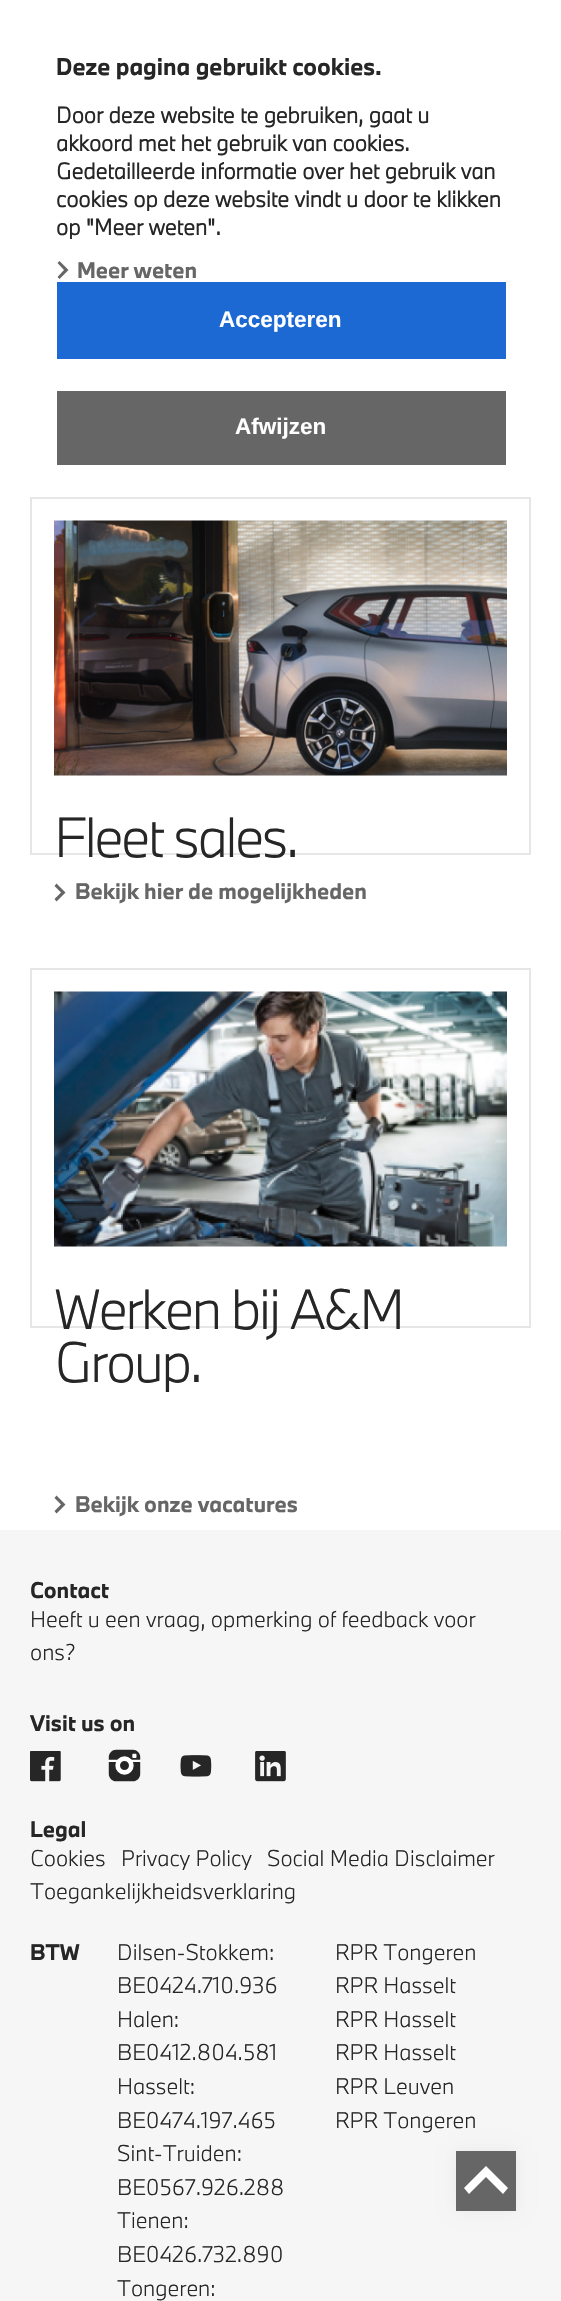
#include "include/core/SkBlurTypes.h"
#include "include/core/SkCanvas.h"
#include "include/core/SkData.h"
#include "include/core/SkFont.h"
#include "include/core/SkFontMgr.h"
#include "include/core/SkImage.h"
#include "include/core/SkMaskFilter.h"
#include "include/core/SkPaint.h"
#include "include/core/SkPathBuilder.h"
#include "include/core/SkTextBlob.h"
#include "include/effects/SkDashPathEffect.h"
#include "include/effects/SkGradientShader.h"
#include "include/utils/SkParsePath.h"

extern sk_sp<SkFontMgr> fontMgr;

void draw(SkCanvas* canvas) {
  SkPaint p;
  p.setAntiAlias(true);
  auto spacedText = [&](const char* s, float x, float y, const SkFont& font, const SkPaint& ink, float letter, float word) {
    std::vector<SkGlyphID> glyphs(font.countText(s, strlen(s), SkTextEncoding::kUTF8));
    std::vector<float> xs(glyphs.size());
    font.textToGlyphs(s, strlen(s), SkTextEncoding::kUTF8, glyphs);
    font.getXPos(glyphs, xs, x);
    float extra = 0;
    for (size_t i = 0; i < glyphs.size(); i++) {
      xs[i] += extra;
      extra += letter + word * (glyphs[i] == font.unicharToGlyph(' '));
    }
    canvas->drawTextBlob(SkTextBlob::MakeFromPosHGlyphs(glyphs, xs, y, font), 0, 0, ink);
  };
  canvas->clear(SK_ColorWHITE);
  p.setColor(SkColorSetRGB(102, 102, 102));
  canvas->drawPath(SkPathBuilder().moveTo(59.5f, 279).lineTo(57.5f, 277).lineTo(64, 270).lineTo(57.5f, 263).lineTo(59.5f, 261).lineTo(68.5f, 270).close().detach(), p);
  p.setColor(SkColorSetRGB(28, 105, 212));
  canvas->drawRect(SkRect::MakeLTRB(57, 282, 506, 359), p);
  p.setColor(SkColorSetRGB(102, 102, 102));
  canvas->drawRect(SkRect::MakeLTRB(57, 391, 506, 465), p);
  p.setStyle(SkPaint::kStroke_Style);
  p.setStrokeWidth(2);
  p.setColor(SkColorSetRGB(230, 230, 230));
  canvas->drawRect(SkRect::MakeLTRB(31, 498, 530, 854), p);
  canvas->drawImageRect(SkImages::DeferredFromEncodedData(SkData::MakeFromFileName("images/1.png")), SkRect::MakeLTRB(54, 520, 507, 776), SkSamplingOptions());
  p.setStyle(SkPaint::kFill_Style);
  p.setColor(SkColorSetRGB(102, 102, 102));
  canvas->drawPath(SkPathBuilder().moveTo(56.5f, 901.5f).lineTo(54.5f, 899).lineTo(61, 892.5f).lineTo(54.5f, 886).lineTo(56.5f, 883.5f).lineTo(65.5f, 892.5f).close().detach(), p);
  p.setStyle(SkPaint::kStroke_Style);
  p.setColor(SkColorSetRGB(230, 230, 230));
  canvas->drawRect(SkRect::MakeLTRB(31, 969, 530, 1327), p);
  canvas->drawImageRect(SkImages::DeferredFromEncodedData(SkData::MakeFromFileName("images/2.png")), SkRect::MakeLTRB(54, 991, 507, 1247), SkSamplingOptions());
  p.setStyle(SkPaint::kFill_Style);
  p.setColor(SkColorSetRGB(102, 102, 102));
  canvas->drawPath(SkPathBuilder().moveTo(56.5f, 1513.5f).lineTo(54.5f, 1511).lineTo(61, 1504.5f).lineTo(54.5f, 1498).lineTo(56.5f, 1495.5f).lineTo(65.5f, 1504.5f).close().detach(), p);
  p.setColor(SkColorSetRGB(246, 246, 246));
  canvas->drawRect(SkRect::MakeLTRB(0, 1530, 561, 2301), p);
  canvas->drawImageRect(SkImages::DeferredFromEncodedData(SkData::MakeFromFileName("images/3.png")), SkRect::MakeLTRB(30, 1751, 61, 1782), SkSamplingOptions());
  canvas->drawImageRect(SkImages::DeferredFromEncodedData(SkData::MakeFromFileName("images/4.png")), SkRect::MakeLTRB(108, 1749, 141, 1782), SkSamplingOptions());
  canvas->drawImageRect(SkImages::DeferredFromEncodedData(SkData::MakeFromFileName("images/5.png")), SkRect::MakeLTRB(180, 1755, 212, 1777), SkSamplingOptions());
  canvas->drawImageRect(SkImages::DeferredFromEncodedData(SkData::MakeFromFileName("images/6.png")), SkRect::MakeLTRB(255, 1751, 286, 1782), SkSamplingOptions());
  p.setColor(SkColorSetARGB(13, 0, 0, 0));
  p.setMaskFilter(SkMaskFilter::MakeBlur(kNormal_SkBlurStyle, 7.5f));
  canvas->drawRect(SkRect::MakeLTRB(456, 2151, 516, 2211), p);
  p.setMaskFilter(nullptr);
  p.setColor(SkColorSetRGB(102, 102, 102));
  canvas->drawRect(SkRect::MakeLTRB(456, 2151, 516, 2211), p);
  p.setColor(SK_ColorWHITE);
  canvas->drawPath(SkPathBuilder(SkPathFillType::kEvenOdd).moveTo(464, 2188).lineTo(469, 2194).lineTo(486, 2177).lineTo(503, 2194).lineTo(508, 2188).lineTo(486, 2166).close().detach(), p);
  SkFont font1(fontMgr->matchFamilyStyle("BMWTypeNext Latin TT", SkFontStyle::Bold()), 22.5f);
  font1.setSubpixel(true);
  p.setColor(SkColorSetRGB(38, 38, 38));
  canvas->drawString("Deze pagina gebruikt cookies.", 56, 75, font1, p);
  SkFont font2(fontMgr->matchFamilyStyle("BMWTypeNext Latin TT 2", SkFontStyle::Bold()), 21);
  font2.setSubpixel(true);
  canvas->drawString("Door deze website te gebruiken, gaat u", 56, 123, font2, p);
  canvas->drawString("akkoord met het gebruik van cookies.", 56, 151, font2, p);
  canvas->drawString("Gedetailleerde informatie over het gebruik van", 56, 179, font2, p);
  canvas->drawString("cookies op deze website vindt u door te klikken", 56, 207, font2, p);
  canvas->drawString("op \"Meer weten\".", 56, 235, font2, p);
  SkFont font3(fontMgr->matchFamilyStyle("BMWTypeNext Latin TT", SkFontStyle::Bold()), 21);
  font3.setSubpixel(true);
  p.setColor(SkColorSetRGB(102, 102, 102));
  canvas->drawString("Meer weten", 77, 278, font3, p);
  SkFont font4(fontMgr->matchFamilyStyle("Liberation Sans", SkFontStyle::Bold()), 22.5f);
  font4.setSubpixel(true);
  p.setColor(SK_ColorWHITE);
  canvas->drawString("Accepteren", 219, 327, font4, p);
  canvas->drawString("Afwijzen", 235, 434, font4, p);
  SkFont font5(fontMgr->matchFamilyStyle("BMWTypeNext Latin TT", SkFontStyle(300, SkFontStyle::kNormal_Width, SkFontStyle::kUpright_Slant)), 52.5f);
  font5.setSubpixel(true);
  p.setColor(SkColorSetRGB(38, 38, 38));
  spacedText("Fleet sales.", 54, 857, font5, p, -2.4f, 0);
  p.setColor(SkColorSetRGB(102, 102, 102));
  canvas->drawString("Bekijk hier de mogelijkheden", 75, 899, font3, p);
  p.setColor(SkColorSetRGB(38, 38, 38));
  spacedText("Werken bij A&M", 54, 1329, font5, p, -2.4f, 0);
  spacedText("Group.", 54, 1382, font5, p, -2.4f, 0);
  p.setColor(SkColorSetRGB(102, 102, 102));
  canvas->drawString("Bekijk onze vacatures", 75, 1512, font3, p);
  p.setColor(SkColorSetRGB(38, 38, 38));
  canvas->drawString("Contact", 30, 1598, font3, p);
  SkFont font6(fontMgr->matchFamilyStyle("BMWTypeNext Latin TT", SkFontStyle(300, SkFontStyle::kNormal_Width, SkFontStyle::kUpright_Slant)), 21);
  font6.setSubpixel(true);
  canvas->drawString("Heeft u een vraag, opmerking of feedback voor", 30, 1627, font6, p);
  canvas->drawString("ons?", 30, 1660, font6, p);
  canvas->drawString("Visit us on", 30, 1731, font3, p);
  canvas->drawString("Legal", 30, 1837, font3, p);
  canvas->drawString("Cookies", 30, 1866, font6, p);
  canvas->drawString("Privacy Policy", 121, 1866, font6, p);
  canvas->drawString("Social Media Disclaimer", 267, 1866, font6, p);
  canvas->drawString("Toegankelijkheidsverklaring", 30, 1899, font6, p);
  canvas->drawString("BTW", 30, 1960, font3, p);
  canvas->drawString("Dilsen-Stokkem:", 117, 1960, font6, p);
  canvas->drawString("BE0424.710.936", 117, 1993, font6, p);
  canvas->drawString("Halen:", 117, 2027, font6, p);
  canvas->drawString("BE0412.804.581", 117, 2060, font6, p);
  canvas->drawString("Hasselt:", 117, 2094, font6, p);
  canvas->drawString("BE0474.197.465", 117, 2128, font6, p);
  canvas->drawString("Sint-Truiden:", 117, 2161, font6, p);
  canvas->drawString("BE0567.926.288", 117, 2195, font6, p);
  canvas->drawString("Tienen:", 117, 2228, font6, p);
  canvas->drawString("BE0426.732.890", 117, 2262, font6, p);
  canvas->drawString("Tongeren:", 117, 2296, font6, p);
  canvas->drawString("RPR Tongeren", 335, 1960, font6, p);
  canvas->drawString("RPR Hasselt", 335, 1993, font6, p);
  canvas->drawString("RPR Hasselt", 335, 2027, font6, p);
  canvas->drawString("RPR Hasselt", 335, 2060, font6, p);
  canvas->drawString("RPR Leuven", 335, 2094, font6, p);
  canvas->drawString("RPR Tongeren", 335, 2128, font6, p);
}
